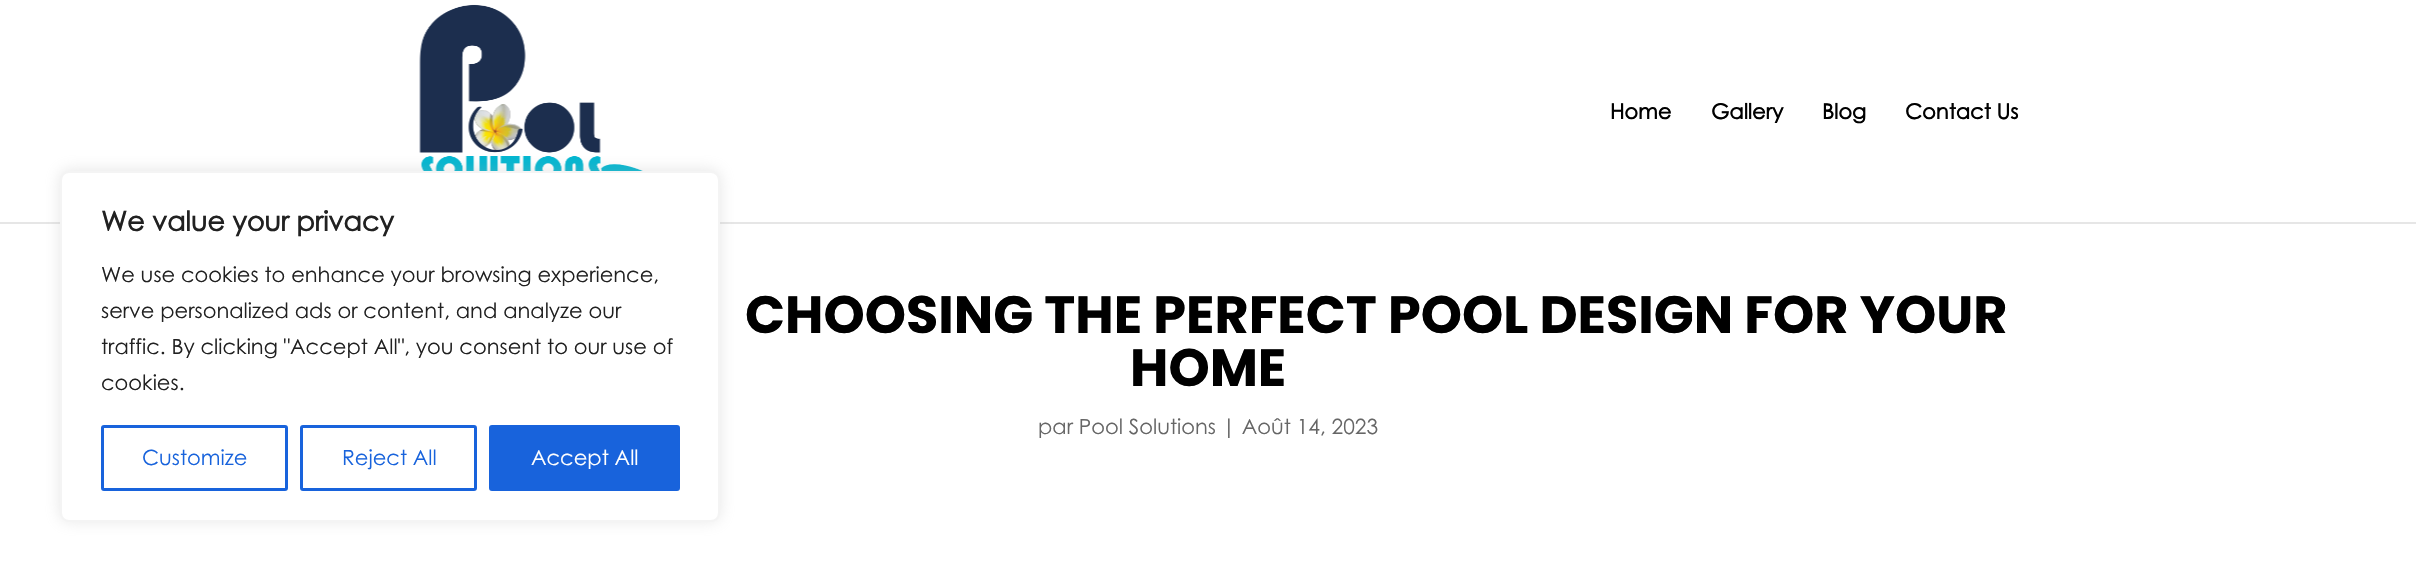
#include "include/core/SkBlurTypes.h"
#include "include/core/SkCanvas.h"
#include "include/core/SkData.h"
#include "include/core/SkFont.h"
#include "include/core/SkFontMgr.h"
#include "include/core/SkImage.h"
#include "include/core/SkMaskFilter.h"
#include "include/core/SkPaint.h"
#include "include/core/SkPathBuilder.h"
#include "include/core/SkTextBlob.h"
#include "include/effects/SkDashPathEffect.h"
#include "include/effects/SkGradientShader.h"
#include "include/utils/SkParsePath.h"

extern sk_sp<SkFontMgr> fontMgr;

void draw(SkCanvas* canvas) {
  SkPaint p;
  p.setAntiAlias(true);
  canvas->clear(SK_ColorWHITE);
  p.setColor(SkColorSetRGB(230, 230, 230));
  canvas->drawPath(SkPathBuilder().moveTo(0, 222).lineTo(0, 224).lineTo(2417, 224).lineTo(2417, 2).lineTo(2416, 2).lineTo(2416, 222).close().detach(), p);
  canvas->drawImageRect(SkImages::DeferredFromEncodedData(SkData::MakeFromFileName("images/1.png")), SkRect::MakeLTRB(419, 4, 643, 171), SkSamplingOptions());
  p.setColor(SkColorSetARGB(77, 172, 171, 171));
  p.setMaskFilter(SkMaskFilter::MakeBlur(kNormal_SkBlurStyle, 7.5f));
  canvas->drawRoundRect(SkRect::MakeLTRB(60, 170, 720, 521), 9, 9, p);
  p.setMaskFilter(nullptr);
  p.setColor(SK_ColorWHITE);
  canvas->drawRoundRect(SkRect::MakeLTRB(61, 172, 719, 521), 8, 8, p);
  p.setStyle(SkPaint::kStroke_Style);
  p.setStrokeWidth(2);
  p.setColor(SkColorSetRGB(244, 244, 244));
  canvas->drawRoundRect(SkRect::MakeLTRB(61, 172, 719, 521), 8, 8, p);
  p.setStrokeWidth(3);
  p.setColor(SkColorSetRGB(24, 99, 220));
  canvas->drawRoundRect(SkRect::MakeLTRB(102.5f, 426.5f, 286.5f, 489.5f), 1.5f, 1.5f, p);
  canvas->drawRoundRect(SkRect::MakeLTRB(301.5f, 426.5f, 475.5f, 489.5f), 1.5f, 1.5f, p);
  p.setStyle(SkPaint::kFill_Style);
  canvas->drawRoundRect(SkRect::MakeLTRB(490.5f, 426.5f, 678.5f, 489.5f), 1.5f, 1.5f, p);
  p.setStyle(SkPaint::kStroke_Style);
  canvas->drawRoundRect(SkRect::MakeLTRB(490.5f, 426.5f, 678.5f, 489.5f), 1.5f, 1.5f, p);
  SkFont font1(fontMgr->matchFamilyStyle("Century Gothic", SkFontStyle::Bold()), 27);
  font1.setSubpixel(true);
  p.setStyle(SkPaint::kFill_Style);
  p.setColor(SkColorSetRGB(33, 33, 33));
  canvas->drawString("We value your privacy", 101, 231, font1, p);
  SkFont font2(fontMgr->matchFamilyStyle("Century Gothic", SkFontStyle::Normal()), 21);
  font2.setSubpixel(true);
  canvas->drawString("We use cookies to enhance your browsing experience,", 101, 282, font2, p);
  canvas->drawString("serve personalized ads or content, and analyze our", 101, 318, font2, p);
  canvas->drawString("traffic. By clicking \"Accept All\", you consent to our use of", 101, 354, font2, p);
  canvas->drawString("cookies.", 101, 390, font2, p);
  p.setColor(SkColorSetRGB(24, 99, 220));
  canvas->drawString("Customize", 142, 465, font2, p);
  canvas->drawString("Reject All", 342, 465, font2, p);
  p.setColor(SK_ColorWHITE);
  canvas->drawString("Accept All", 531, 465, font2, p);
  SkFont font3(fontMgr->matchFamilyStyle("Century Gothic", SkFontStyle::Bold()), 21);
  font3.setSubpixel(true);
  p.setColor(SK_ColorBLACK);
  canvas->drawString("Home", 1610, 119, font3, p);
  canvas->drawString("Gallery", 1711, 119, font3, p);
  canvas->drawString("Blog", 1822, 119, font3, p);
  canvas->drawString("Contact Us", 1905, 119, font3, p);
  SkFont font4(fontMgr->matchFamilyStyle("Poppins", SkFontStyle::Bold()), 52.5f);
  font4.setSubpixel(true);
  canvas->drawString("CHOOSING THE PERFECT POOL DESIGN FOR YOUR", 745, 333, font4, p);
  canvas->drawString("HOME", 1130, 386, font4, p);
  p.setColor(SkColorSetRGB(102, 102, 102));
  canvas->drawString("par Pool Solutions | Août 14, 2023", 1038, 434, font2, p);
}
